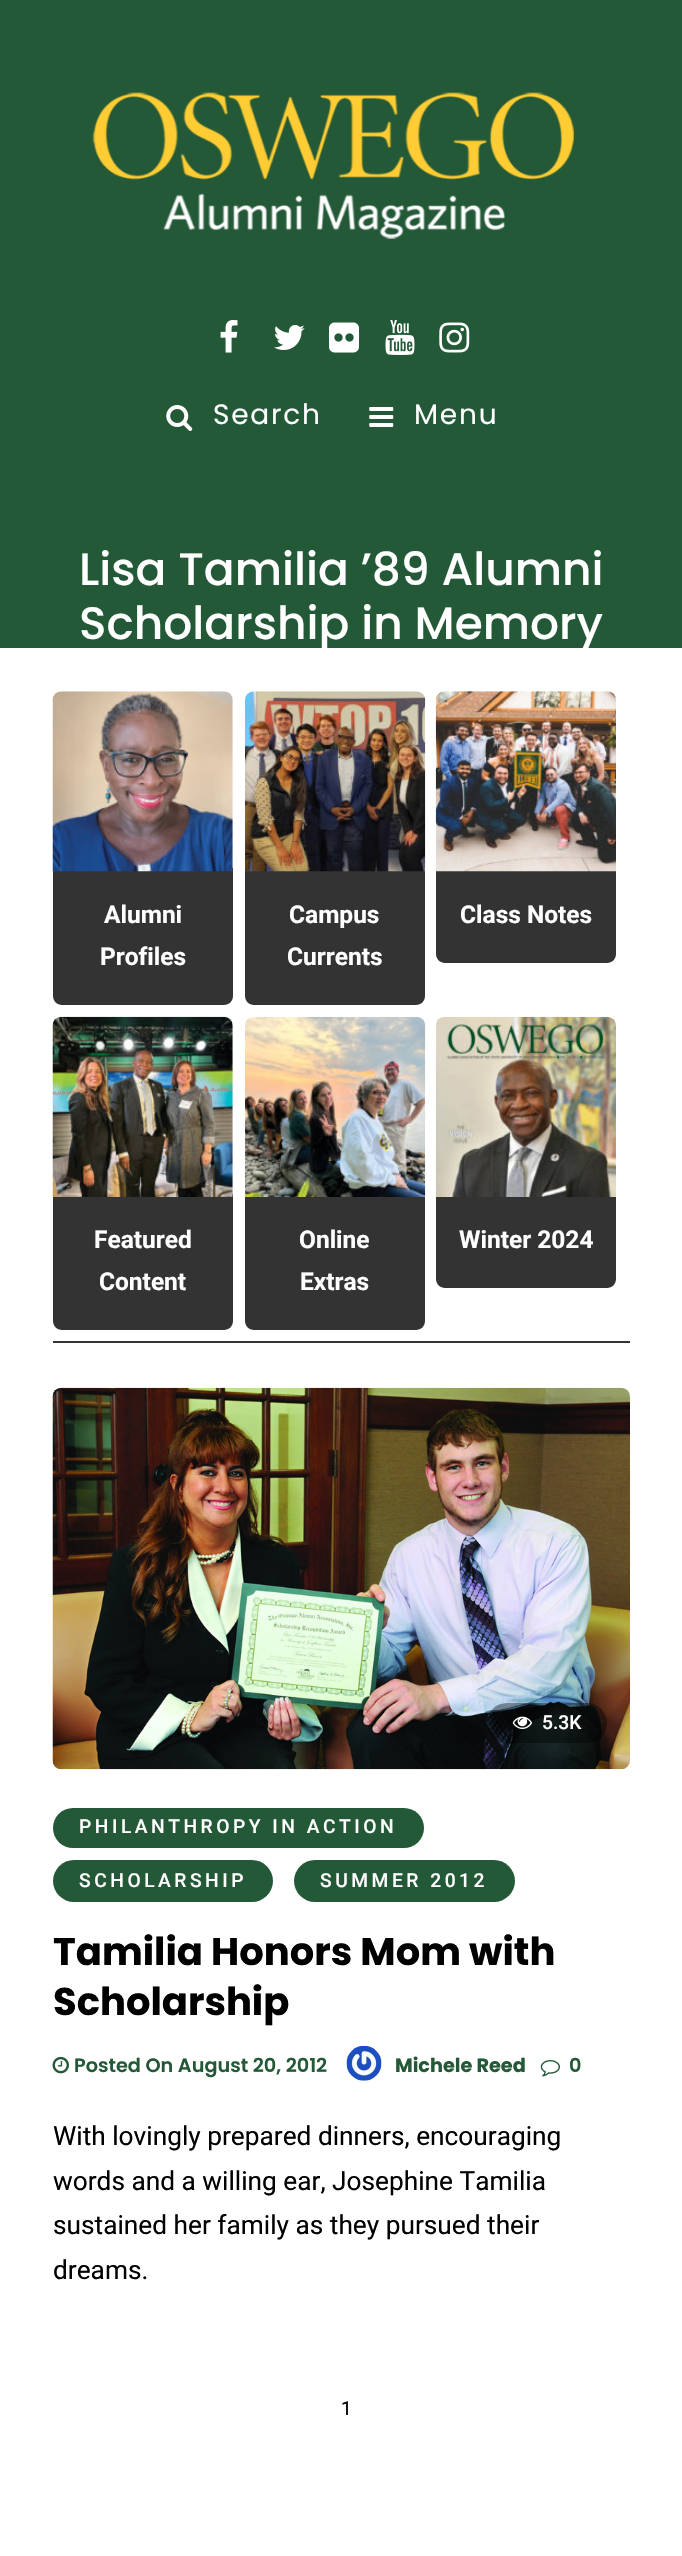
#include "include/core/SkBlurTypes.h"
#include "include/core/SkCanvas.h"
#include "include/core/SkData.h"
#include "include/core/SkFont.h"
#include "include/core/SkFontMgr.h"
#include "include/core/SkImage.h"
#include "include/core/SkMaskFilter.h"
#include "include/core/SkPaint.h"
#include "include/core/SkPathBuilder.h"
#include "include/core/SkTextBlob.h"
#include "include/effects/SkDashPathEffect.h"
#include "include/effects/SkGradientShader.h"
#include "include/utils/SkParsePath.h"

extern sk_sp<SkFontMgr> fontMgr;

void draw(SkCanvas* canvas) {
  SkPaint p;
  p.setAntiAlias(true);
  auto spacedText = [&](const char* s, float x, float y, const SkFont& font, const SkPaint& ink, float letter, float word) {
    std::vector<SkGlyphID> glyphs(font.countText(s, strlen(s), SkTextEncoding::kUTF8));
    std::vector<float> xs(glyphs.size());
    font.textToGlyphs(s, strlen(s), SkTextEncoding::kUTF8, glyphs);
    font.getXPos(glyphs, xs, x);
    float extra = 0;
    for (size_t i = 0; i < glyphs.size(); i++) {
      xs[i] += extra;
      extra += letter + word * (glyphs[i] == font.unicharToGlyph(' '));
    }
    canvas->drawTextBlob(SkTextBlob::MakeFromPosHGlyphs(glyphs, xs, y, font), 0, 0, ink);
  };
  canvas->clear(SK_ColorWHITE);
  p.setColor(SkColorSetRGB(35, 89, 55));
  canvas->drawRect(SkRect::MakeLTRB(0, 0, 682, 648), p);
  canvas->drawImageRect(SkImages::DeferredFromEncodedData(SkData::MakeFromFileName("images/1.png")), SkRect::MakeLTRB(92, 92, 574, 239), SkSamplingOptions());
  canvas->drawImageRect(SkImages::DeferredFromEncodedData(SkData::MakeFromFileName("images/2.png")), SkRect::MakeLTRB(220, 320, 238, 353), SkSamplingOptions());
  canvas->drawImageRect(SkImages::DeferredFromEncodedData(SkData::MakeFromFileName("images/3.png")), SkRect::MakeLTRB(274, 325, 305, 350), SkSamplingOptions());
  canvas->drawImageRect(SkImages::DeferredFromEncodedData(SkData::MakeFromFileName("images/4.png")), SkRect::MakeLTRB(329, 322, 359, 353), SkSamplingOptions());
  canvas->drawImageRect(SkImages::DeferredFromEncodedData(SkData::MakeFromFileName("images/5.png")), SkRect::MakeLTRB(385, 320, 415, 355), SkSamplingOptions());
  canvas->drawImageRect(SkImages::DeferredFromEncodedData(SkData::MakeFromFileName("images/6.png")), SkRect::MakeLTRB(439, 322, 470, 353), SkSamplingOptions());
  canvas->drawImageRect(SkImages::DeferredFromEncodedData(SkData::MakeFromFileName("images/7.png")), SkRect::MakeLTRB(166, 405, 193, 431), SkSamplingOptions());
  canvas->drawImageRect(SkImages::DeferredFromEncodedData(SkData::MakeFromFileName("images/8.png")), SkRect::MakeLTRB(369, 407, 394, 427), SkSamplingOptions());
  p.setColor(SkColorSetRGB(51, 51, 51));
  canvas->drawRect(SkRect::MakeLTRB(53, 1341, 630, 1343), p);
  canvas->drawPath(SkPathBuilder().moveTo(53, 868).lineTo(233, 868).lineTo(233, 996).cubicTo(233, 1001, 229, 1005, 224, 1005).lineTo(62, 1005).cubicTo(57, 1005, 53, 1001, 53, 996).close().detach(), p);
  canvas->drawImageRect(SkImages::DeferredFromEncodedData(SkData::MakeFromFileName("images/9.png")), SkRect::MakeLTRB(52, 691, 233, 872), SkSamplingOptions());
  canvas->drawPath(SkPathBuilder().moveTo(245, 868).lineTo(425, 868).lineTo(425, 996).cubicTo(425, 1001, 421, 1005, 416, 1005).lineTo(254, 1005).cubicTo(249, 1005, 245, 1001, 245, 996).close().detach(), p);
  canvas->drawImageRect(SkImages::DeferredFromEncodedData(SkData::MakeFromFileName("images/10.png")), SkRect::MakeLTRB(245, 691, 426, 872), SkSamplingOptions());
  canvas->drawPath(SkPathBuilder().moveTo(436, 868).lineTo(616, 868).lineTo(616, 954).cubicTo(616, 959, 612, 963, 607, 963).lineTo(445, 963).cubicTo(440, 963, 436, 959, 436, 954).close().detach(), p);
  canvas->drawImageRect(SkImages::DeferredFromEncodedData(SkData::MakeFromFileName("images/11.png")), SkRect::MakeLTRB(435, 691, 616, 872), SkSamplingOptions());
  canvas->drawPath(SkPathBuilder().moveTo(53, 1194).lineTo(233, 1194).lineTo(233, 1321).cubicTo(233, 1326, 229, 1330, 224, 1330).lineTo(62, 1330).cubicTo(57, 1330, 53, 1326, 53, 1321).close().detach(), p);
  canvas->drawImageRect(SkImages::DeferredFromEncodedData(SkData::MakeFromFileName("images/12.png")), SkRect::MakeLTRB(52, 1016, 233, 1197), SkSamplingOptions());
  canvas->drawPath(SkPathBuilder().moveTo(245, 1194).lineTo(425, 1194).lineTo(425, 1321).cubicTo(425, 1326, 421, 1330, 416, 1330).lineTo(254, 1330).cubicTo(249, 1330, 245, 1326, 245, 1321).close().detach(), p);
  canvas->drawImageRect(SkImages::DeferredFromEncodedData(SkData::MakeFromFileName("images/13.png")), SkRect::MakeLTRB(245, 1016, 426, 1197), SkSamplingOptions());
  canvas->drawPath(SkPathBuilder().moveTo(436, 1194).lineTo(616, 1194).lineTo(616, 1279).cubicTo(616, 1284, 612, 1288, 607, 1288).lineTo(445, 1288).cubicTo(440, 1288, 436, 1284, 436, 1279).close().detach(), p);
  canvas->drawImageRect(SkImages::DeferredFromEncodedData(SkData::MakeFromFileName("images/14.png")), SkRect::MakeLTRB(435, 1016, 616, 1197), SkSamplingOptions());
  canvas->drawImageRect(SkImages::DeferredFromEncodedData(SkData::MakeFromFileName("images/15.png")), SkRect::MakeLTRB(52, 1387, 630, 1770), SkSamplingOptions());
  p.setColor(SkColorSetARGB(102, 0, 0, 0));
  canvas->drawRoundRect(SkRect::MakeLTRB(487, 1703, 607, 1743), 20, 20, p);
  canvas->drawImageRect(SkImages::DeferredFromEncodedData(SkData::MakeFromFileName("images/16.png")), SkRect::MakeLTRB(512, 1716, 532, 1729), SkSamplingOptions());
  p.setColor(SkColorSetRGB(35, 89, 55));
  canvas->drawRoundRect(SkRect::MakeLTRB(53, 1808, 424, 1848), 20, 20, p);
  canvas->drawRoundRect(SkRect::MakeLTRB(53, 1860, 273, 1902), 21, 21, p);
  canvas->drawRoundRect(SkRect::MakeLTRB(294, 1860, 515, 1902), 21, 21, p);
  canvas->drawImageRect(SkImages::DeferredFromEncodedData(SkData::MakeFromFileName("images/17.png")), SkRect::MakeLTRB(52, 2056, 69, 2074), SkSamplingOptions());
  canvas->drawImageRect(SkImages::DeferredFromEncodedData(SkData::MakeFromFileName("images/18.png")), SkRect::MakeLTRB(346, 2045, 382, 2081), SkSamplingOptions());
  canvas->drawImageRect(SkImages::DeferredFromEncodedData(SkData::MakeFromFileName("images/19.png")), SkRect::MakeLTRB(540, 2060, 560, 2077), SkSamplingOptions());
  SkFont font1(fontMgr->matchFamilyStyle("Poppins", SkFontStyle::Normal()), 28);
  font1.setSubpixel(true);
  p.setColor(SK_ColorWHITE);
  spacedText("Search", 213, 424, font1, p, 1.75f, 0);
  spacedText("Menu", 414, 424, font1, p, 1.75f, 0);
  SkFont font2(fontMgr->matchFamilyStyle("Poppins", SkFontStyle(500, SkFontStyle::kNormal_Width, SkFontStyle::kUpright_Slant)), 45.5f);
  font2.setSubpixel(true);
  canvas->drawString("Lisa Tamilia ’89 Alumni", 79, 585, font2, p);
  canvas->drawString("Scholarship in Memory", 79, 639, font2, p);
  SkFont font3(fontMgr->matchFamilyStyle("Roboto", SkFontStyle::Bold()), 24.5f);
  font3.setSubpixel(true);
  canvas->drawString("Alumni", 104, 923, font3, p);
  canvas->drawString("Profiles", 100, 965, font3, p);
  canvas->drawString("Campus", 289, 923, font3, p);
  canvas->drawString("Currents", 287, 965, font3, p);
  canvas->drawString("Class Notes", 460, 923, font3, p);
  canvas->drawString("Featured", 94, 1248, font3, p);
  canvas->drawString("Content", 99, 1290, font3, p);
  canvas->drawString("Online", 299, 1248, font3, p);
  canvas->drawString("Extras", 300, 1290, font3, p);
  canvas->drawString("Winter 2024", 459, 1248, font3, p);
  SkFont font4(fontMgr->matchFamilyStyle("Roboto", SkFontStyle(500, SkFontStyle::kNormal_Width, SkFontStyle::kUpright_Slant)), 19.25f);
  font4.setSubpixel(true);
  canvas->drawString("5.3K", 542, 1729, font4, p);
  spacedText("PHILANTHROPY IN ACTION", 79, 1833, font4, p, 3.5f, 0);
  spacedText("SCHOLARSHIP", 79, 1887, font4, p, 3.5f, 0);
  spacedText("SUMMER 2012", 320, 1887, font4, p, 3.5f, 0);
  SkFont font5(fontMgr->matchFamilyStyle("Poppins", SkFontStyle::Bold()), 38.5f);
  font5.setSubpixel(true);
  p.setColor(SK_ColorBLACK);
  canvas->drawString("Tamilia Honors Mom with", 53, 1965, font5, p);
  canvas->drawString("Scholarship", 53, 2015, font5, p);
  SkFont font6(fontMgr->matchFamilyStyle("Poppins", SkFontStyle(600, SkFontStyle::kNormal_Width, SkFontStyle::kUpright_Slant)), 19.25f);
  font6.setSubpixel(true);
  p.setColor(SkColorSetRGB(35, 89, 55));
  canvas->drawString("Posted On August 20, 2012", 74, 2072, font6, p);
  SkFont font7(fontMgr->matchFamilyStyle("Poppins", SkFontStyle::Bold()), 19.25f);
  font7.setSubpixel(true);
  canvas->drawString("Michele Reed", 395, 2072, font7, p);
  canvas->drawString("0", 569, 2072, font6, p);
  SkFont font8(fontMgr->matchFamilyStyle("Roboto", SkFontStyle::Normal()), 26.25f);
  font8.setSubpixel(true);
  p.setColor(SK_ColorBLACK);
  canvas->drawString("With lovingly prepared dinners, encouraging", 53, 2145, font8, p);
  canvas->drawString("words and a willing ear, Josephine Tamilia", 53, 2190, font8, p);
  canvas->drawString("sustained her family as they pursued their", 53, 2234, font8, p);
  canvas->drawString("dreams.", 53, 2279, font8, p);
  SkFont font9(fontMgr->matchFamilyStyle("Roboto", SkFontStyle::Normal()), 19.25f);
  font9.setSubpixel(true);
  canvas->drawString("1", 341, 2415, font9, p);
}
